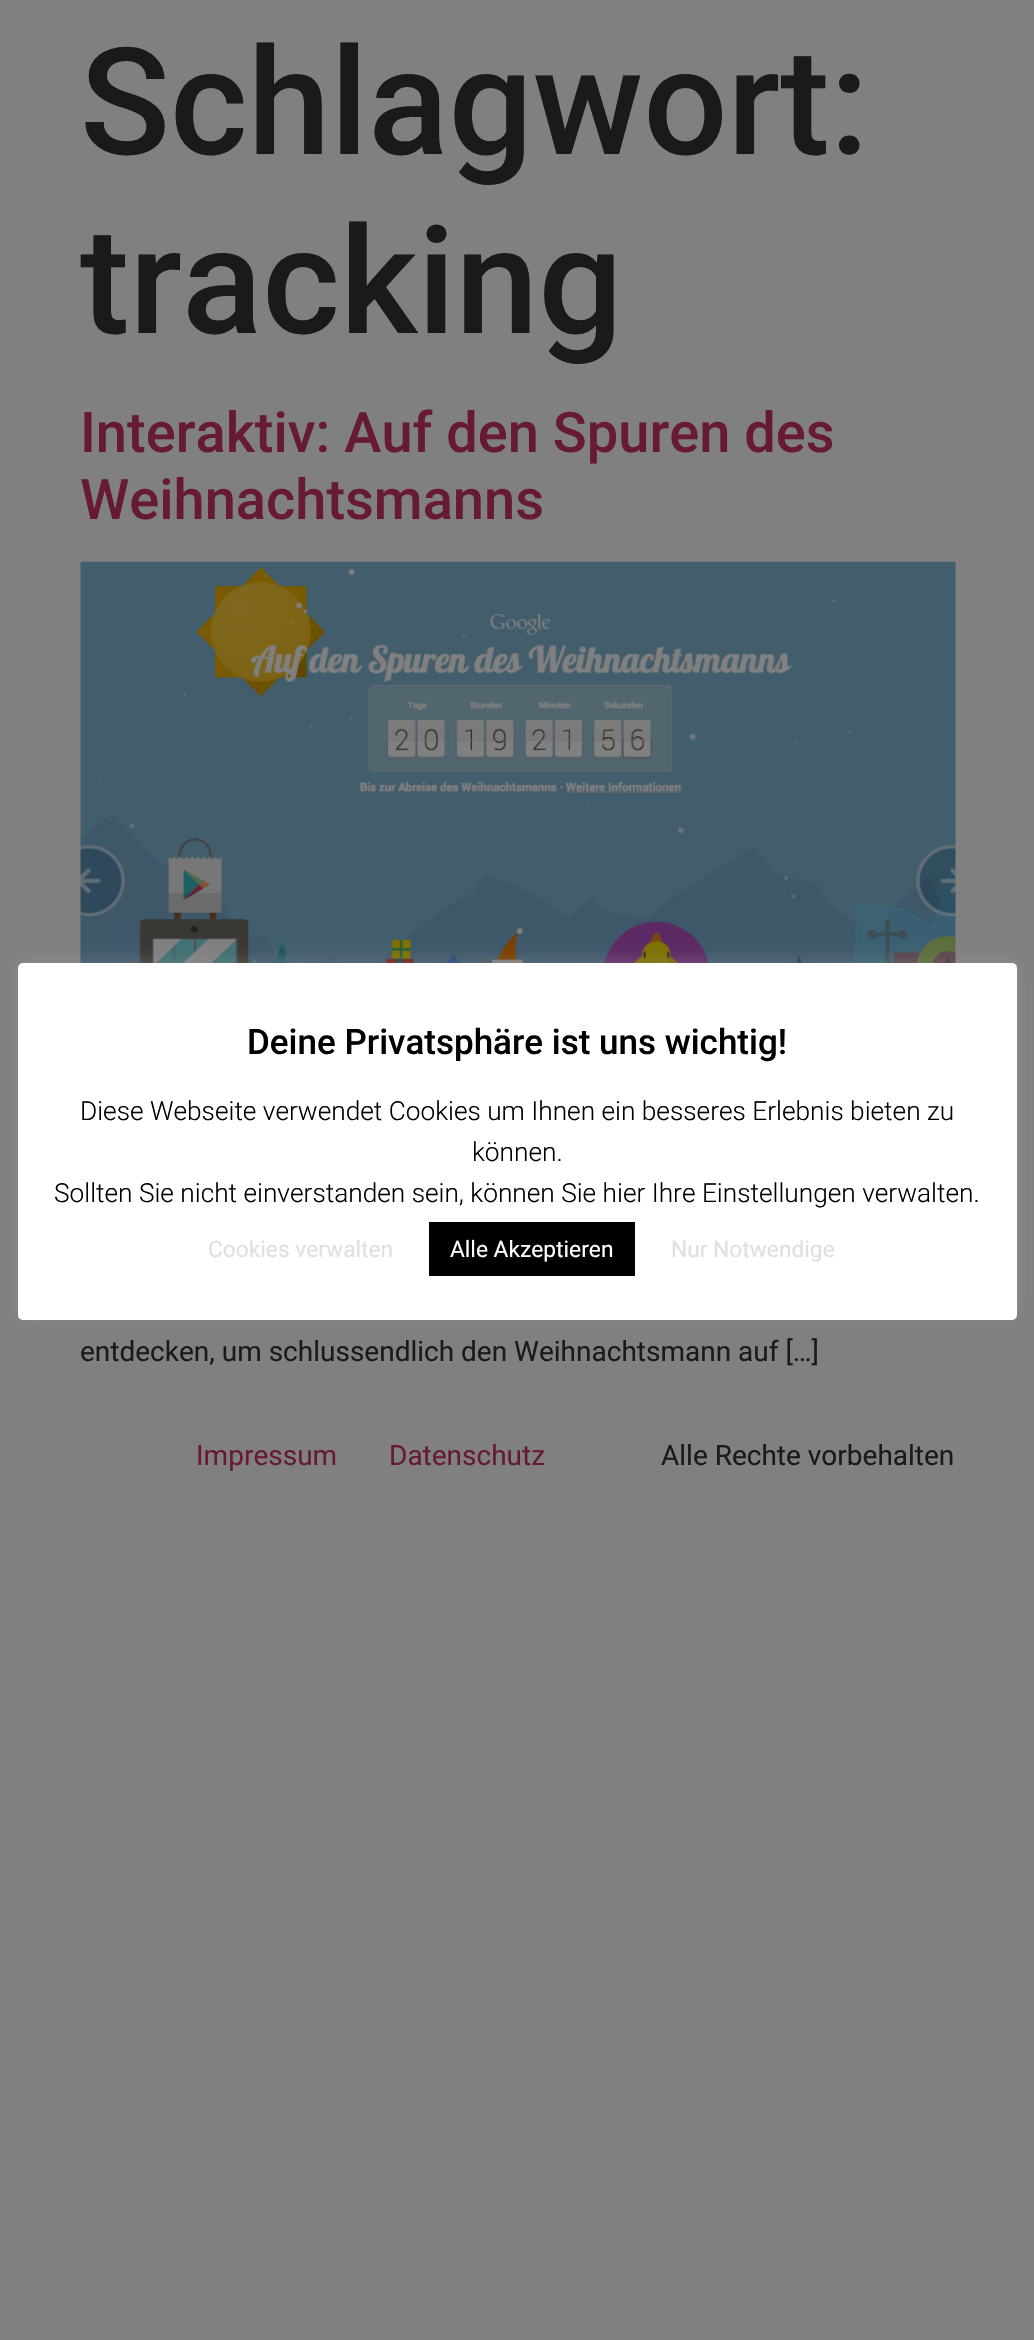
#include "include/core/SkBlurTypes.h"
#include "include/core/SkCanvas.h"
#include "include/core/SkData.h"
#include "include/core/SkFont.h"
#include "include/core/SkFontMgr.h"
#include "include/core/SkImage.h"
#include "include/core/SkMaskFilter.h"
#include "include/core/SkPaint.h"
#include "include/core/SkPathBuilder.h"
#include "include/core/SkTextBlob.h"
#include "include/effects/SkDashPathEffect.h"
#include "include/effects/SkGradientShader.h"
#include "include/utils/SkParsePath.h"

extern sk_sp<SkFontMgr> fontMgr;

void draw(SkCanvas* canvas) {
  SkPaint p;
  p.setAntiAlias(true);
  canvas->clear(SkColorSetRGB(128, 128, 128));
  canvas->drawImageRect(SkImages::DeferredFromEncodedData(SkData::MakeFromFileName("images/1.png")), SkRect::MakeLTRB(80, 561, 956, 963), SkSamplingOptions());
  p.setColor(SkColorSetARGB(77, 172, 171, 171));
  p.setMaskFilter(SkMaskFilter::MakeBlur(kNormal_SkBlurStyle, 9));
  canvas->drawRoundRect(SkRect::MakeLTRB(18, 961, 1017, 1318), 5, 5, p);
  p.setMaskFilter(nullptr);
  p.setColor(SK_ColorWHITE);
  canvas->drawRoundRect(SkRect::MakeLTRB(18, 963, 1017, 1320), 5, 5, p);
  p.setColor(SK_ColorBLACK);
  canvas->drawRect(SkRect::MakeLTRB(429, 1222, 635, 1276), p);
  SkFont font1(fontMgr->matchFamilyStyle("Roboto", SkFontStyle(500, SkFontStyle::kNormal_Width, SkFontStyle::kUpright_Slant)), 148.75f);
  font1.setSubpixel(true);
  p.setColor(SkColorSetRGB(26, 26, 26));
  canvas->drawString("Schlagwort:", 80, 154, font1, p);
  canvas->drawString("tracking", 80, 333, font1, p);
  SkFont font2(fontMgr->matchFamilyStyle("Roboto", SkFontStyle(500, SkFontStyle::kNormal_Width, SkFontStyle::kUpright_Slant)), 56);
  font2.setSubpixel(true);
  p.setColor(SkColorSetRGB(102, 26, 51));
  canvas->drawString("Interaktiv: Auf den Spuren des", 80, 452, font2, p);
  canvas->drawString("Weihnachtsmanns", 80, 519, font2, p);
  SkFont font3(fontMgr->matchFamilyStyle("Roboto", SkFontStyle::Normal()), 28);
  font3.setSubpixel(true);
  p.setColor(SkColorSetRGB(26, 26, 26));
  canvas->drawString("entdecken, um schlussendlich den Weihnachtsmann auf […]", 80, 1361, font3, p);
  SkFont font4(fontMgr->matchFamilyStyle("Roboto", SkFontStyle(500, SkFontStyle::kNormal_Width, SkFontStyle::kUpright_Slant)), 35);
  font4.setSubpixel(true);
  p.setColor(SK_ColorBLACK);
  canvas->drawString("Deine Privatsphäre ist uns wichtig!", 247, 1054, font4, p);
  SkFont font5(fontMgr->matchFamilyStyle("Roboto", SkFontStyle(300, SkFontStyle::kNormal_Width, SkFontStyle::kUpright_Slant)), 26.25f);
  font5.setSubpixel(true);
  canvas->drawString("Diese Webseite verwendet Cookies um Ihnen ein besseres Erlebnis bieten zu", 80, 1120, font5, p);
  canvas->drawString("können.", 472, 1161, font5, p);
  canvas->drawString("Sollten Sie nicht einverstanden sein, können Sie hier Ihre Einstellungen verwalten.", 54, 1202, font5, p);
  SkFont font6(fontMgr->matchFamilyStyle("Roboto", SkFontStyle::Normal()), 22.75f);
  font6.setSubpixel(true);
  p.setColor(SkColorSetRGB(224, 224, 224));
  canvas->drawString("Cookies verwalten", 208, 1257, font6, p);
  p.setColor(SK_ColorWHITE);
  canvas->drawString("Alle Akzeptieren", 450, 1257, font6, p);
  p.setColor(SkColorSetRGB(224, 224, 224));
  canvas->drawString("Nur Notwendige", 671, 1257, font6, p);
  p.setColor(SkColorSetRGB(102, 26, 51));
  canvas->drawString("Impressum", 196, 1465, font3, p);
  canvas->drawString("Datenschutz", 389, 1465, font3, p);
  p.setColor(SkColorSetRGB(26, 26, 26));
  canvas->drawString("Alle Rechte vorbehalten", 661, 1465, font3, p);
}
